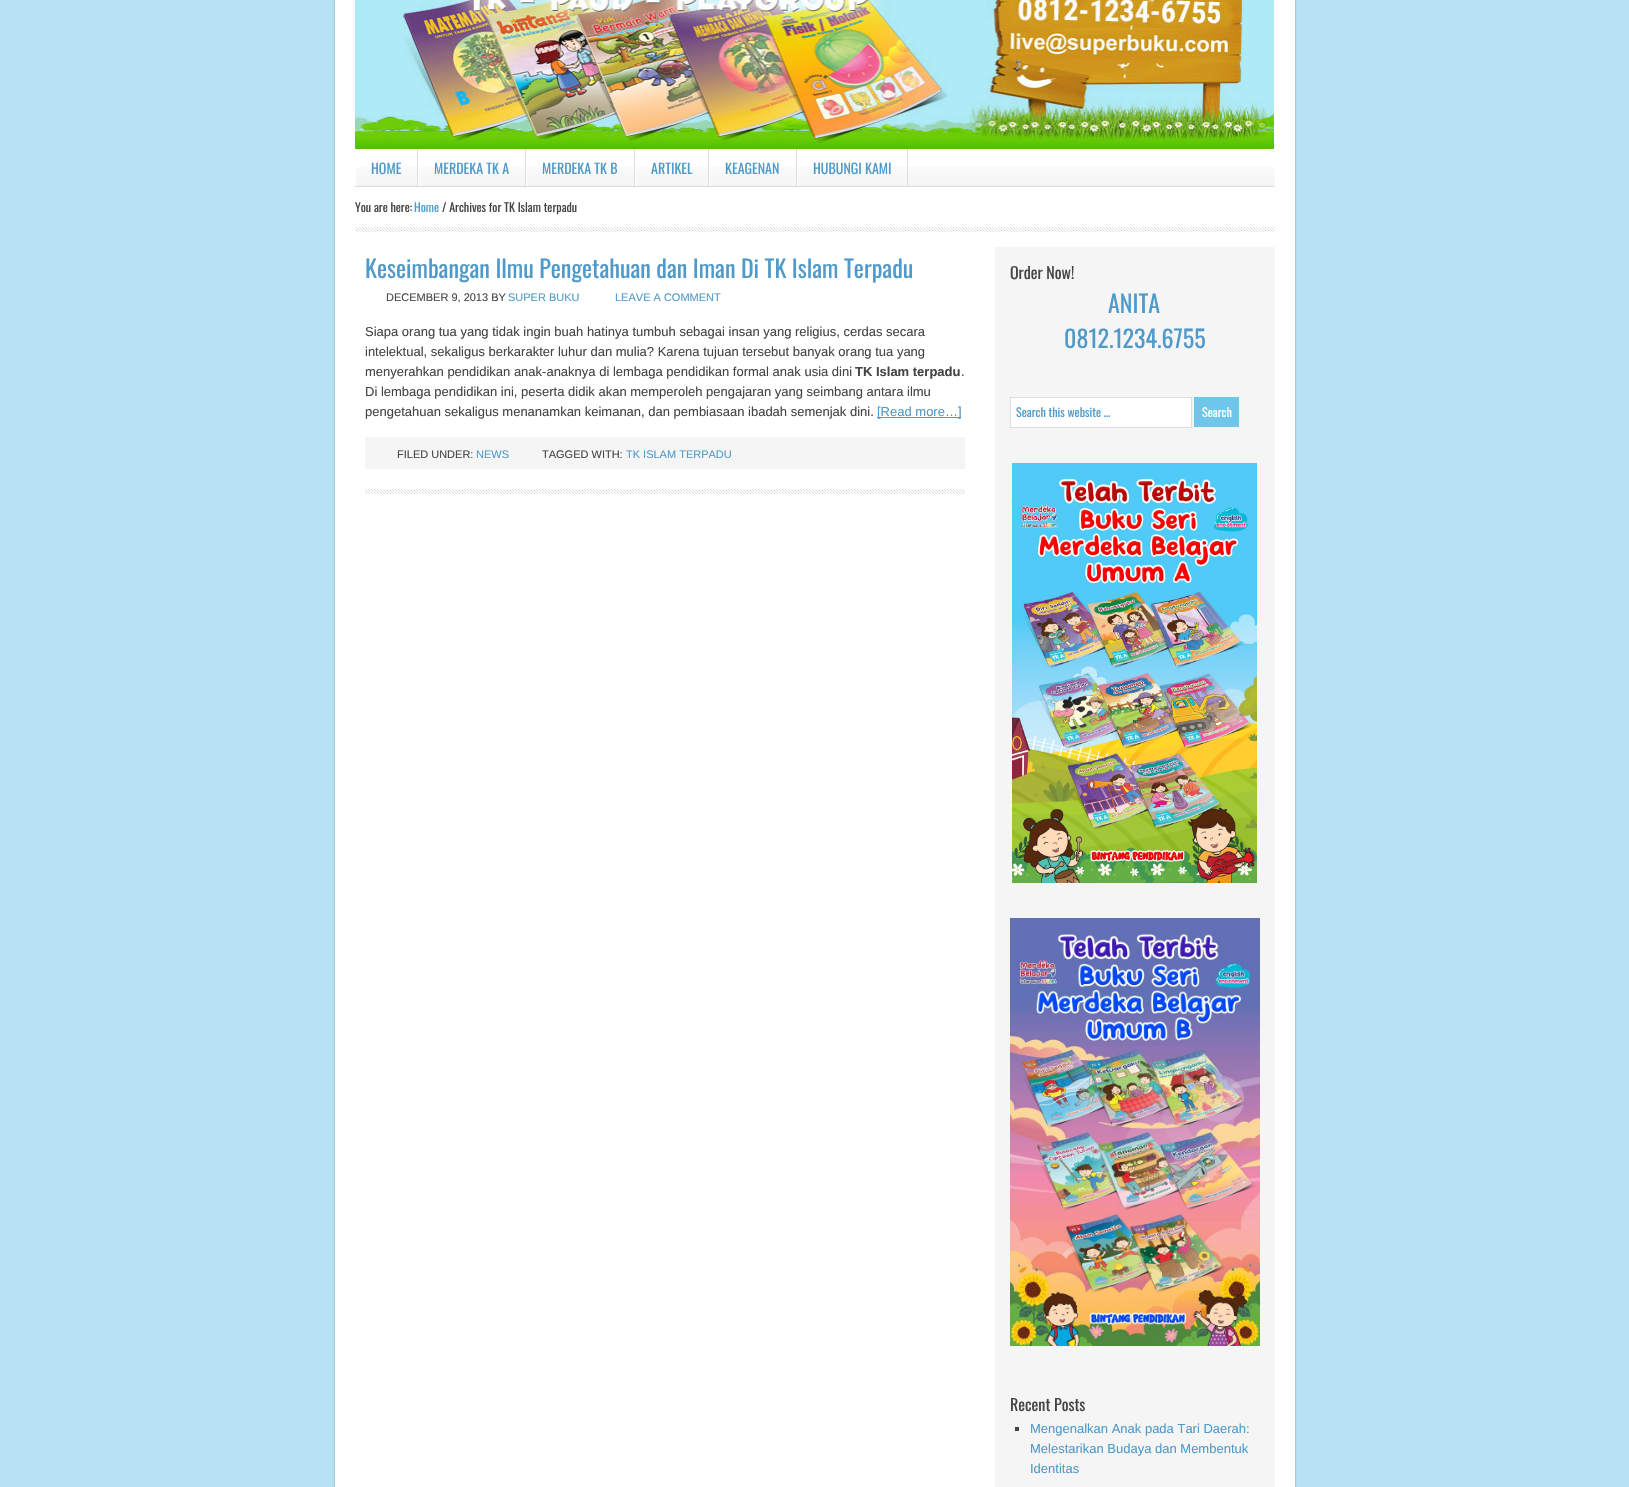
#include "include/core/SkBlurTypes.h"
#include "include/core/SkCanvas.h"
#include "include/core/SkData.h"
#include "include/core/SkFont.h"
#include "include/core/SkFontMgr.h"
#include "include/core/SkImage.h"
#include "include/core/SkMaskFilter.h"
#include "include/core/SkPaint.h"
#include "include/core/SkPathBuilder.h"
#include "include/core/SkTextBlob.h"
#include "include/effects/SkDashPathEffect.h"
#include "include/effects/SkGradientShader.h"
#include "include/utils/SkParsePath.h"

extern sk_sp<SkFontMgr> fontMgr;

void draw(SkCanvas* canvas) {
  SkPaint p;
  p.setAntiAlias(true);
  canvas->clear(SkColorSetRGB(182, 226, 244));
  p.setColor(SkColorSetRGB(153, 153, 153));
  p.setMaskFilter(SkMaskFilter::MakeBlur(kNormal_SkBlurStyle, 1));
  canvas->drawRect(SkRect::MakeLTRB(335, -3, 1295, 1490), p);
  p.setMaskFilter(nullptr);
  p.setColor(SK_ColorWHITE);
  canvas->drawRect(SkRect::MakeLTRB(335, 0, 1295, 1487), p);
  canvas->drawImageRect(SkImages::DeferredFromEncodedData(SkData::MakeFromFileName("images/1.png")), SkRect::MakeLTRB(355, 0, 1274, 149), SkSamplingOptions());
  canvas->drawImageRect(SkImages::DeferredFromEncodedData(SkData::MakeFromFileName("images/2.png")), SkRect::MakeLTRB(356, 167, 1275, 186), SkSamplingOptions());
  p.setColor(SkColorSetRGB(221, 221, 221));
  canvas->drawRect(SkRect::MakeLTRB(355, 186, 1275, 187), p);
  canvas->drawRect(SkRect::MakeLTRB(417, 149, 418, 186), p);
  canvas->drawRect(SkRect::MakeLTRB(525, 149, 526, 186), p);
  p.setColor(SK_ColorWHITE);
  canvas->drawRect(SkRect::MakeLTRB(418, 167, 419, 186), p);
  p.setColor(SkColorSetRGB(221, 221, 221));
  canvas->drawRect(SkRect::MakeLTRB(634, 149, 635, 186), p);
  p.setColor(SK_ColorWHITE);
  canvas->drawRect(SkRect::MakeLTRB(526, 167, 527, 186), p);
  p.setColor(SkColorSetRGB(221, 221, 221));
  canvas->drawRect(SkRect::MakeLTRB(708, 149, 709, 186), p);
  p.setColor(SK_ColorWHITE);
  canvas->drawRect(SkRect::MakeLTRB(635, 167, 636, 186), p);
  p.setColor(SkColorSetRGB(221, 221, 221));
  canvas->drawRect(SkRect::MakeLTRB(796, 149, 797, 186), p);
  p.setColor(SK_ColorWHITE);
  canvas->drawRect(SkRect::MakeLTRB(709, 167, 710, 186), p);
  p.setColor(SkColorSetRGB(221, 221, 221));
  canvas->drawRect(SkRect::MakeLTRB(907, 149, 908, 186), p);
  p.setColor(SK_ColorWHITE);
  canvas->drawRect(SkRect::MakeLTRB(797, 167, 798, 186), p);
  canvas->drawImageRect(SkImages::DeferredFromEncodedData(SkData::MakeFromFileName("images/3.png")), SkRect::MakeLTRB(355, 227, 1275, 232), SkSamplingOptions());
  canvas->drawImageRect(SkImages::DeferredFromEncodedData(SkData::MakeFromFileName("images/4.png")), SkRect::MakeLTRB(365, 489, 965, 494), SkSamplingOptions());
  p.setColor(SkColorSetRGB(80, 154, 201));
  canvas->drawRect(SkRect::MakeLTRB(877, 417, 961, 418), p);
  p.setColor(SkColorSetRGB(245, 245, 245));
  canvas->drawRect(SkRect::MakeLTRB(365, 437, 965, 469), p);
  canvas->drawRect(SkRect::MakeLTRB(995, 247, 1275, 1487), p);
  p.setColor(SK_ColorWHITE);
  canvas->drawRect(SkRect::MakeLTRB(1010.5f, 397.5f, 1191.5f, 427.5f), p);
  p.setStyle(SkPaint::kStroke_Style);
  p.setStrokeWidth(1);
  p.setColor(SkColorSetRGB(221, 221, 221));
  canvas->drawRect(SkRect::MakeLTRB(1010.5f, 397.5f, 1191.5f, 427.5f), p);
  p.setStyle(SkPaint::kFill_Style);
  p.setColor(SkColorSetRGB(110, 198, 234));
  canvas->drawRect(SkRect::MakeLTRB(1194, 397, 1239, 427), p);
  canvas->drawImageRect(SkImages::DeferredFromEncodedData(SkData::MakeFromFileName("images/5.png")), SkRect::MakeLTRB(1012, 463, 1257, 883), SkSamplingOptions());
  canvas->drawImageRect(SkImages::DeferredFromEncodedData(SkData::MakeFromFileName("images/6.png")), SkRect::MakeLTRB(1010, 918, 1260, 1346), SkSamplingOptions());
  p.setColor(SkColorSetRGB(68, 68, 68));
  canvas->drawRect(SkRect::MakeLTRB(1015, 1427, 1019, 1431), p);
  SkFont font1(fontMgr->matchFamilyStyle("Oswald", SkFontStyle::Normal()), 14);
  font1.setSubpixel(true);
  p.setColor(SkColorSetRGB(80, 154, 201));
  canvas->drawString("HOME", 371, 174, font1, p);
  canvas->drawString("MERDEKA TK A", 434, 174, font1, p);
  canvas->drawString("MERDEKA TK B", 542, 174, font1, p);
  canvas->drawString("ARTIKEL", 651, 174, font1, p);
  canvas->drawString("KEAGENAN", 725, 174, font1, p);
  canvas->drawString("HUBUNGI KAMI", 813, 174, font1, p);
  SkFont font2(fontMgr->matchFamilyStyle("Oswald", SkFontStyle::Normal()), 12);
  font2.setSubpixel(true);
  p.setColor(SkColorSetRGB(68, 68, 68));
  canvas->drawString("You are here:", 355, 212, font2, p);
  p.setColor(SkColorSetRGB(80, 154, 201));
  canvas->drawString("Home", 414, 212, font2, p);
  p.setColor(SkColorSetRGB(68, 68, 68));
  canvas->drawString("/ Archives for TK Islam terpadu", 442, 212, font2, p);
  SkFont font3(fontMgr->matchFamilyStyle("Oswald", SkFontStyle::Normal()), 24);
  font3.setSubpixel(true);
  p.setColor(SkColorSetRGB(80, 154, 201));
  canvas->drawString("Keseimbangan Ilmu Pengetahuan dan Iman Di TK Islam Terpadu", 365, 278, font3, p);
  SkFont font4(fontMgr->matchFamilyStyle("Liberation Sans", SkFontStyle::Normal()), 11);
  font4.setSubpixel(true);
  p.setColor(SkColorSetRGB(68, 68, 68));
  canvas->drawString("DECEMBER 9, 2013 BY", 386, 301, font4, p);
  p.setColor(SkColorSetRGB(80, 154, 201));
  canvas->drawString("SUPER BUKU", 508, 301, font4, p);
  canvas->drawString("LEAVE A COMMENT", 615, 301, font4, p);
  SkFont font5(fontMgr->matchFamilyStyle("Liberation Sans", SkFontStyle::Normal()), 13);
  font5.setSubpixel(true);
  p.setColor(SkColorSetRGB(68, 68, 68));
  canvas->drawString("Siapa orang tua yang tidak ingin buah hatinya tumbuh sebagai insan yang religius, cerdas secara", 365, 336, font5, p);
  canvas->drawString("intelektual, sekaligus berkarakter luhur dan mulia? Karena tujuan tersebut banyak orang tua yang", 365, 356, font5, p);
  canvas->drawString("menyerahkan pendidikan anak-anaknya di lembaga pendidikan formal anak usia dini", 365, 376, font5, p);
  SkFont font6(fontMgr->matchFamilyStyle("Liberation Sans", SkFontStyle::Bold()), 13);
  font6.setSubpixel(true);
  canvas->drawString("TK Islam terpadu", 855, 376, font6, p);
  canvas->drawString(".", 961, 376, font5, p);
  canvas->drawString("Di lembaga pendidikan ini, peserta didik akan memperoleh pengajaran yang seimbang antara ilmu", 365, 396, font5, p);
  canvas->drawString("pengetahuan sekaligus menanamkan keimanan, dan pembiasaan ibadah semenjak dini.", 365, 416, font5, p);
  p.setColor(SkColorSetRGB(80, 154, 201));
  canvas->drawString("[Read more…]", 877, 416, font5, p);
  p.setColor(SkColorSetRGB(68, 68, 68));
  canvas->drawString("FILED UNDER:", 397, 458, font4, p);
  p.setColor(SkColorSetRGB(80, 154, 201));
  canvas->drawString("NEWS", 476, 458, font4, p);
  p.setColor(SkColorSetRGB(68, 68, 68));
  canvas->drawString("TAGGED WITH:", 542, 458, font4, p);
  p.setColor(SkColorSetRGB(80, 154, 201));
  canvas->drawString("TK ISLAM TERPADU", 626, 458, font4, p);
  SkFont font7(fontMgr->matchFamilyStyle("Oswald", SkFontStyle::Normal()), 16);
  font7.setSubpixel(true);
  p.setColor(SkColorSetRGB(68, 68, 68));
  canvas->drawString("Order Now!", 1010, 279, font7, p);
  p.setColor(SkColorSetRGB(80, 154, 201));
  canvas->drawString("ANITA", 1108, 313, font3, p);
  canvas->drawString("0812.1234.6755", 1064, 348, font3, p);
  canvas->drawString("Search this website …", 1016, 417, font2, p);
  p.setColor(SK_ColorWHITE);
  canvas->drawString("Search", 1202, 417, font2, p);
  p.setColor(SkColorSetRGB(68, 68, 68));
  canvas->drawString("Recent Posts", 1010, 1411, font7, p);
  p.setColor(SkColorSetRGB(80, 154, 201));
  canvas->drawString("Mengenalkan Anak pada Tari Daerah:", 1030, 1433, font5, p);
  canvas->drawString("Melestarikan Budaya dan Membentuk", 1030, 1453, font5, p);
  canvas->drawString("Identitas", 1030, 1473, font5, p);
}
